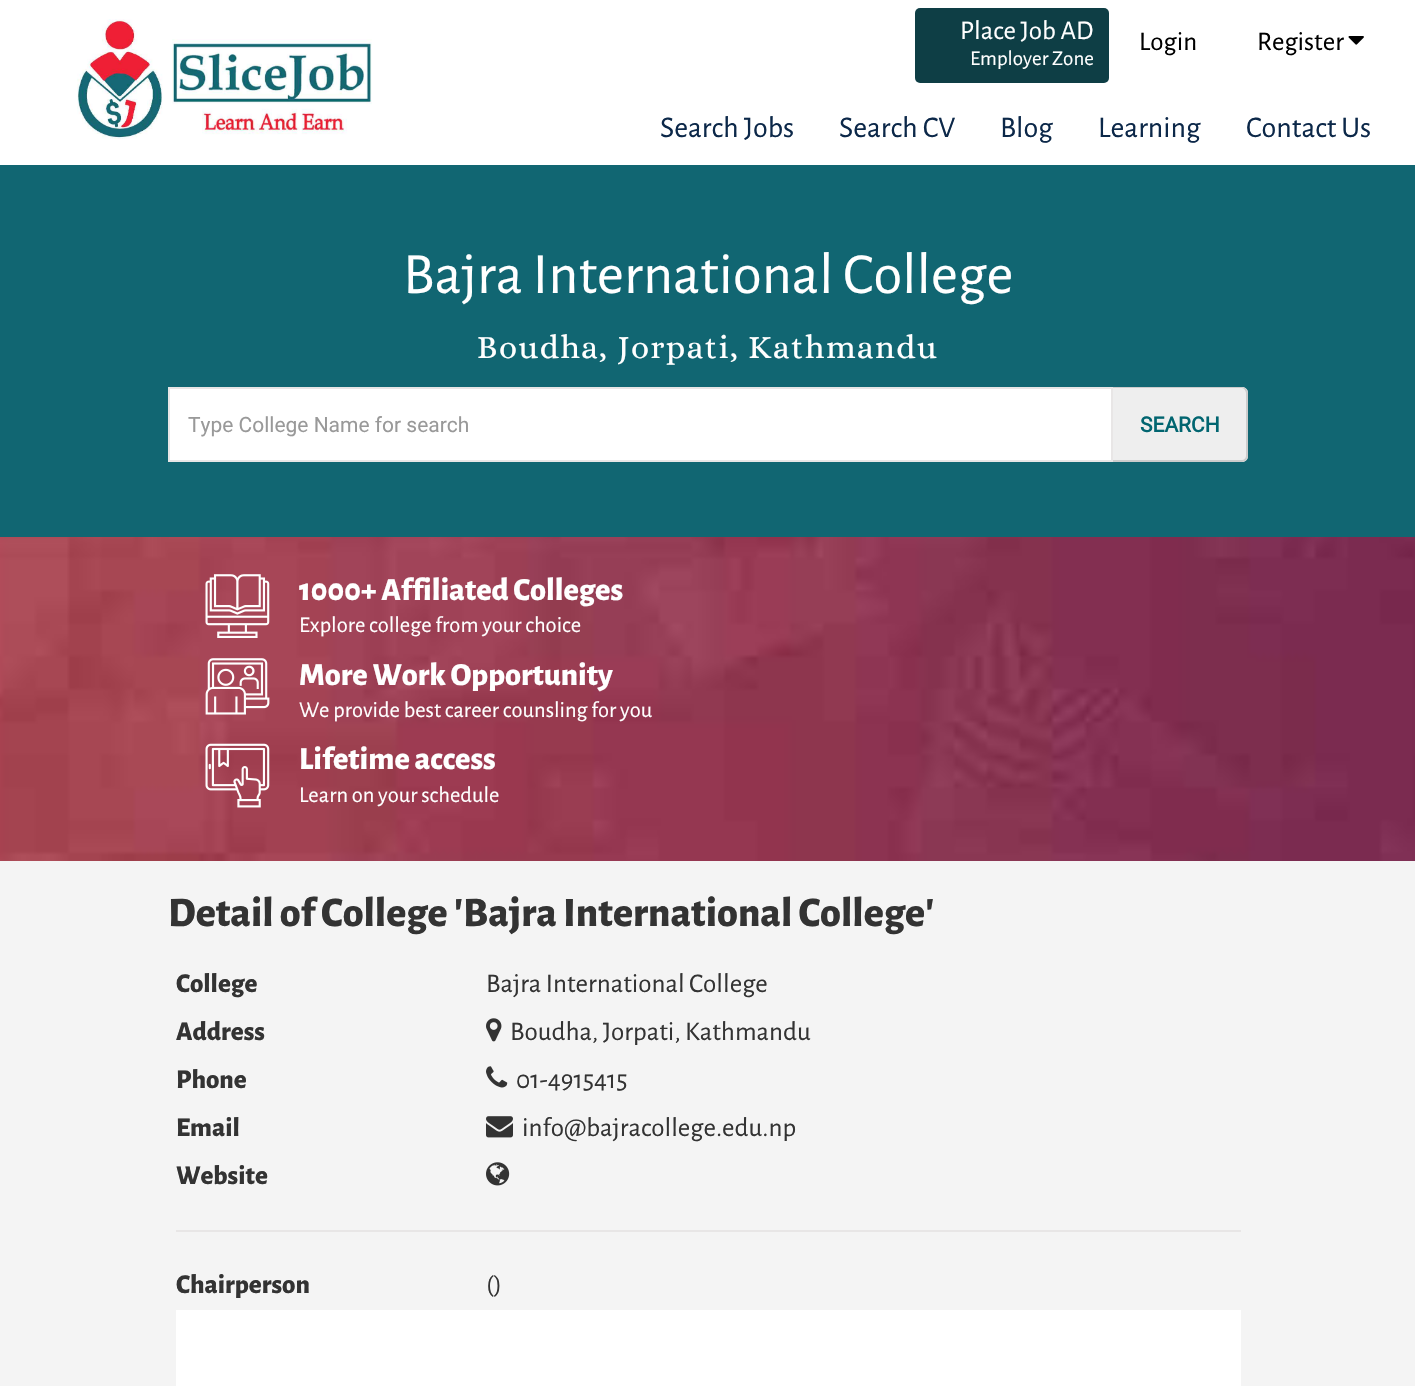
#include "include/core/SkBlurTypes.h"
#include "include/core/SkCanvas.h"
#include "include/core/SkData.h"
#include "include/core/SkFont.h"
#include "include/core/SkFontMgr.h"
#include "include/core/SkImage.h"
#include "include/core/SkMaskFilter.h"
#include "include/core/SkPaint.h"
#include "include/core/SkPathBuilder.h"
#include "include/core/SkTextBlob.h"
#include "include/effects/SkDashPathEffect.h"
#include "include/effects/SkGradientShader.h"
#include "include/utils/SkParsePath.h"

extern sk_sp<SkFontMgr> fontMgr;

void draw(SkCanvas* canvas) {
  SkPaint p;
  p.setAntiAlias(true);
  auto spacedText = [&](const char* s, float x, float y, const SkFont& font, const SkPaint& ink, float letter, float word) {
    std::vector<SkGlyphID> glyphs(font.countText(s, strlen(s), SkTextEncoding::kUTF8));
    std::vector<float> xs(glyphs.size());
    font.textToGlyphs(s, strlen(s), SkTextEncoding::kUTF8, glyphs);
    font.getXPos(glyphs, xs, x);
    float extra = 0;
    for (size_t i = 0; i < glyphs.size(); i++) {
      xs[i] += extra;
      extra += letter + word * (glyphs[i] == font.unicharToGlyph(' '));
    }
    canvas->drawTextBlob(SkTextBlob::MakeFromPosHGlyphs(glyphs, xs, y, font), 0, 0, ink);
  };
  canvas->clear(SkColorSetRGB(244, 244, 244));
  p.setColor(SK_ColorWHITE);
  canvas->drawRect(SkRect::MakeLTRB(0, 0, 1415, 165), p);
  canvas->drawImageRect(SkImages::DeferredFromEncodedData(SkData::MakeFromFileName("images/1.png")), SkRect::MakeLTRB(77, 19, 372, 139), SkSamplingOptions());
  p.setColor(SkColorSetRGB(14, 62, 69));
  canvas->drawRoundRect(SkRect::MakeLTRB(915, 8, 1109, 83), 5, 5, p);
  canvas->drawImageRect(SkImages::DeferredFromEncodedData(SkData::MakeFromFileName("images/2.png")), SkRect::MakeLTRB(1348, 36, 1364, 45), SkSamplingOptions());
  p.setColor(SkColorSetRGB(17, 102, 114));
  canvas->drawRect(SkRect::MakeLTRB(0, 165, 1415, 537), p);
  p.setColor(SK_ColorWHITE);
  canvas->drawRect(SkRect::MakeLTRB(169, 388, 1112, 461), p);
  p.setStyle(SkPaint::kStroke_Style);
  p.setStrokeWidth(2);
  p.setColor(SkColorSetRGB(232, 230, 230));
  canvas->drawRect(SkRect::MakeLTRB(169, 388, 1112, 461), p);
  p.setStyle(SkPaint::kFill_Style);
  p.setColor(SkColorSetRGB(238, 238, 238));
  canvas->drawPath(SkPathBuilder().moveTo(1113, 387).lineTo(1242, 387).cubicTo(1245.5f, 387, 1248, 389.5f, 1248, 393).lineTo(1248, 456).cubicTo(1248, 459.5f, 1245.5f, 462, 1242, 462).lineTo(1113, 462).close().detach(), p);
  p.setColor(SkColorSetRGB(204, 204, 204));
  canvas->drawPath(SkPathBuilder(SkPathFillType::kEvenOdd).moveTo(1113, 387).lineTo(1242, 387).cubicTo(1245, 387, 1248, 390, 1248, 393).lineTo(1248, 456).cubicTo(1248, 459, 1245, 462, 1242, 462).lineTo(1113, 462).close().moveTo(1113, 388).lineTo(1242, 388).cubicTo(1244, 388, 1246, 391, 1246, 393).lineTo(1246, 456).cubicTo(1246, 458, 1244, 460, 1242, 460).lineTo(1113, 460).close().detach(), p);
  canvas->drawImageRect(SkImages::DeferredFromEncodedData(SkData::MakeFromFileName("images/3.png")), SkRect::MakeLTRB(0, 537, 1415, 861), SkSamplingOptions());
  canvas->drawImageRect(SkImages::DeferredFromEncodedData(SkData::MakeFromFileName("images/4.png")), SkRect::MakeLTRB(205, 574, 270, 638), SkSamplingOptions());
  canvas->drawImageRect(SkImages::DeferredFromEncodedData(SkData::MakeFromFileName("images/5.png")), SkRect::MakeLTRB(205, 658, 270, 715), SkSamplingOptions());
  canvas->drawImageRect(SkImages::DeferredFromEncodedData(SkData::MakeFromFileName("images/6.png")), SkRect::MakeLTRB(205, 743, 270, 808), SkSamplingOptions());
  canvas->drawImageRect(SkImages::DeferredFromEncodedData(SkData::MakeFromFileName("images/7.png")), SkRect::MakeLTRB(486, 1018, 502, 1042), SkSamplingOptions());
  canvas->drawImageRect(SkImages::DeferredFromEncodedData(SkData::MakeFromFileName("images/8.png")), SkRect::MakeLTRB(486, 1066, 508, 1088), SkSamplingOptions());
  canvas->drawImageRect(SkImages::DeferredFromEncodedData(SkData::MakeFromFileName("images/9.png")), SkRect::MakeLTRB(486, 1116, 513, 1138), SkSamplingOptions());
  canvas->drawImageRect(SkImages::DeferredFromEncodedData(SkData::MakeFromFileName("images/10.png")), SkRect::MakeLTRB(486, 1162, 510, 1186), SkSamplingOptions());
  p.setColor(SkColorSetRGB(232, 230, 230));
  canvas->drawRect(SkRect::MakeLTRB(176, 1230, 1241, 1232), p);
  p.setColor(SK_ColorWHITE);
  canvas->drawRect(SkRect::MakeLTRB(176, 1310, 1241, 1386), p);
  SkFont font1(fontMgr->matchFamilyStyle("Alegreya Sans", SkFontStyle::Normal()), 27);
  font1.setSubpixel(true);
  canvas->drawString("Place Job AD", 960, 39, font1, p);
  SkFont font2(fontMgr->matchFamilyStyle("Alegreya Sans", SkFontStyle::Normal()), 21);
  font2.setSubpixel(true);
  canvas->drawString("Employer Zone", 970, 65, font2, p);
  p.setColor(SK_ColorBLACK);
  canvas->drawString("Login", 1139, 50, font1, p);
  canvas->drawString("Register", 1257, 50, font1, p);
  SkFont font3(fontMgr->matchFamilyStyle("Alegreya Sans", SkFontStyle::Normal()), 30);
  font3.setSubpixel(true);
  p.setColor(SkColorSetRGB(12, 40, 73));
  canvas->drawString("Search Jobs", 660, 137, font3, p);
  canvas->drawString("Search CV", 839, 137, font3, p);
  canvas->drawString("Blog", 1000, 137, font3, p);
  canvas->drawString("Learning", 1098, 137, font3, p);
  canvas->drawString("Contact Us", 1246, 137, font3, p);
  SkFont font4(fontMgr->matchFamilyStyle("Alegreya Sans", SkFontStyle::Normal()), 58.5f);
  font4.setSubpixel(true);
  p.setColor(SK_ColorWHITE);
  canvas->drawString("Bajra International College", 403, 293, font4, p);
  SkFont font5(fontMgr->matchFamilyStyle("Alice", SkFontStyle::Normal()), 33);
  font5.setSubpixel(true);
  spacedText("Boudha, Jorpati, Kathmandu", 477, 358, font5, p, 1.5f, 0);
  SkFont font6(fontMgr->matchFamilyStyle("Roboto", SkFontStyle::Normal()), 21);
  font6.setSubpixel(true);
  p.setColor(SkColorSetRGB(153, 153, 153));
  canvas->drawString("Type College Name for search", 188, 432, font6, p);
  SkFont font7(fontMgr->matchFamilyStyle("Roboto", SkFontStyle::Bold()), 21);
  font7.setSubpixel(true);
  p.setColor(SkColorSetRGB(1, 101, 112));
  canvas->drawString("SEARCH", 1140, 432, font7, p);
  SkFont font8(fontMgr->matchFamilyStyle("Alegreya Sans", SkFontStyle(800, SkFontStyle::kNormal_Width, SkFontStyle::kUpright_Slant)), 32.25f);
  font8.setSubpixel(true);
  p.setColor(SK_ColorWHITE);
  canvas->drawString("1000+ Affiliated Colleges", 299, 600, font8, p);
  SkFont font9(fontMgr->matchFamilyStyle("Alegreya Sans", SkFontStyle::Normal()), 22.5f);
  font9.setSubpixel(true);
  canvas->drawString("Explore college from your choice", 299, 632, font9, p);
  canvas->drawString("More Work Opportunity", 299, 685, font8, p);
  canvas->drawString("We provide best career counsling for you", 299, 717, font9, p);
  canvas->drawString("Lifetime access", 299, 769, font8, p);
  canvas->drawString("Learn on your schedule", 299, 802, font9, p);
  SkFont font10(fontMgr->matchFamilyStyle("Alegreya Sans", SkFontStyle(800, SkFontStyle::kNormal_Width, SkFontStyle::kUpright_Slant)), 42);
  font10.setSubpixel(true);
  p.setColor(SkColorSetRGB(51, 51, 51));
  canvas->drawString("Detail of College 'Bajra International College'", 168, 926, font10, p);
  SkFont font11(fontMgr->matchFamilyStyle("Alegreya Sans", SkFontStyle(800, SkFontStyle::kNormal_Width, SkFontStyle::kUpright_Slant)), 27);
  font11.setSubpixel(true);
  canvas->drawString("College", 176, 992, font11, p);
  canvas->drawString("Bajra International College", 486, 992, font1, p);
  canvas->drawString("Address", 176, 1040, font11, p);
  canvas->drawString("Boudha, Jorpati, Kathmandu", 510, 1040, font1, p);
  canvas->drawString("Phone", 176, 1088, font11, p);
  canvas->drawString("01-4915415", 516, 1088, font1, p);
  canvas->drawString("Email", 176, 1136, font11, p);
  canvas->drawString("info@bajracollege.edu.np", 522, 1136, font1, p);
  canvas->drawString("Website", 176, 1184, font11, p);
  canvas->drawString("Chairperson", 176, 1293, font11, p);
  canvas->drawString("()", 486, 1293, font1, p);
}
